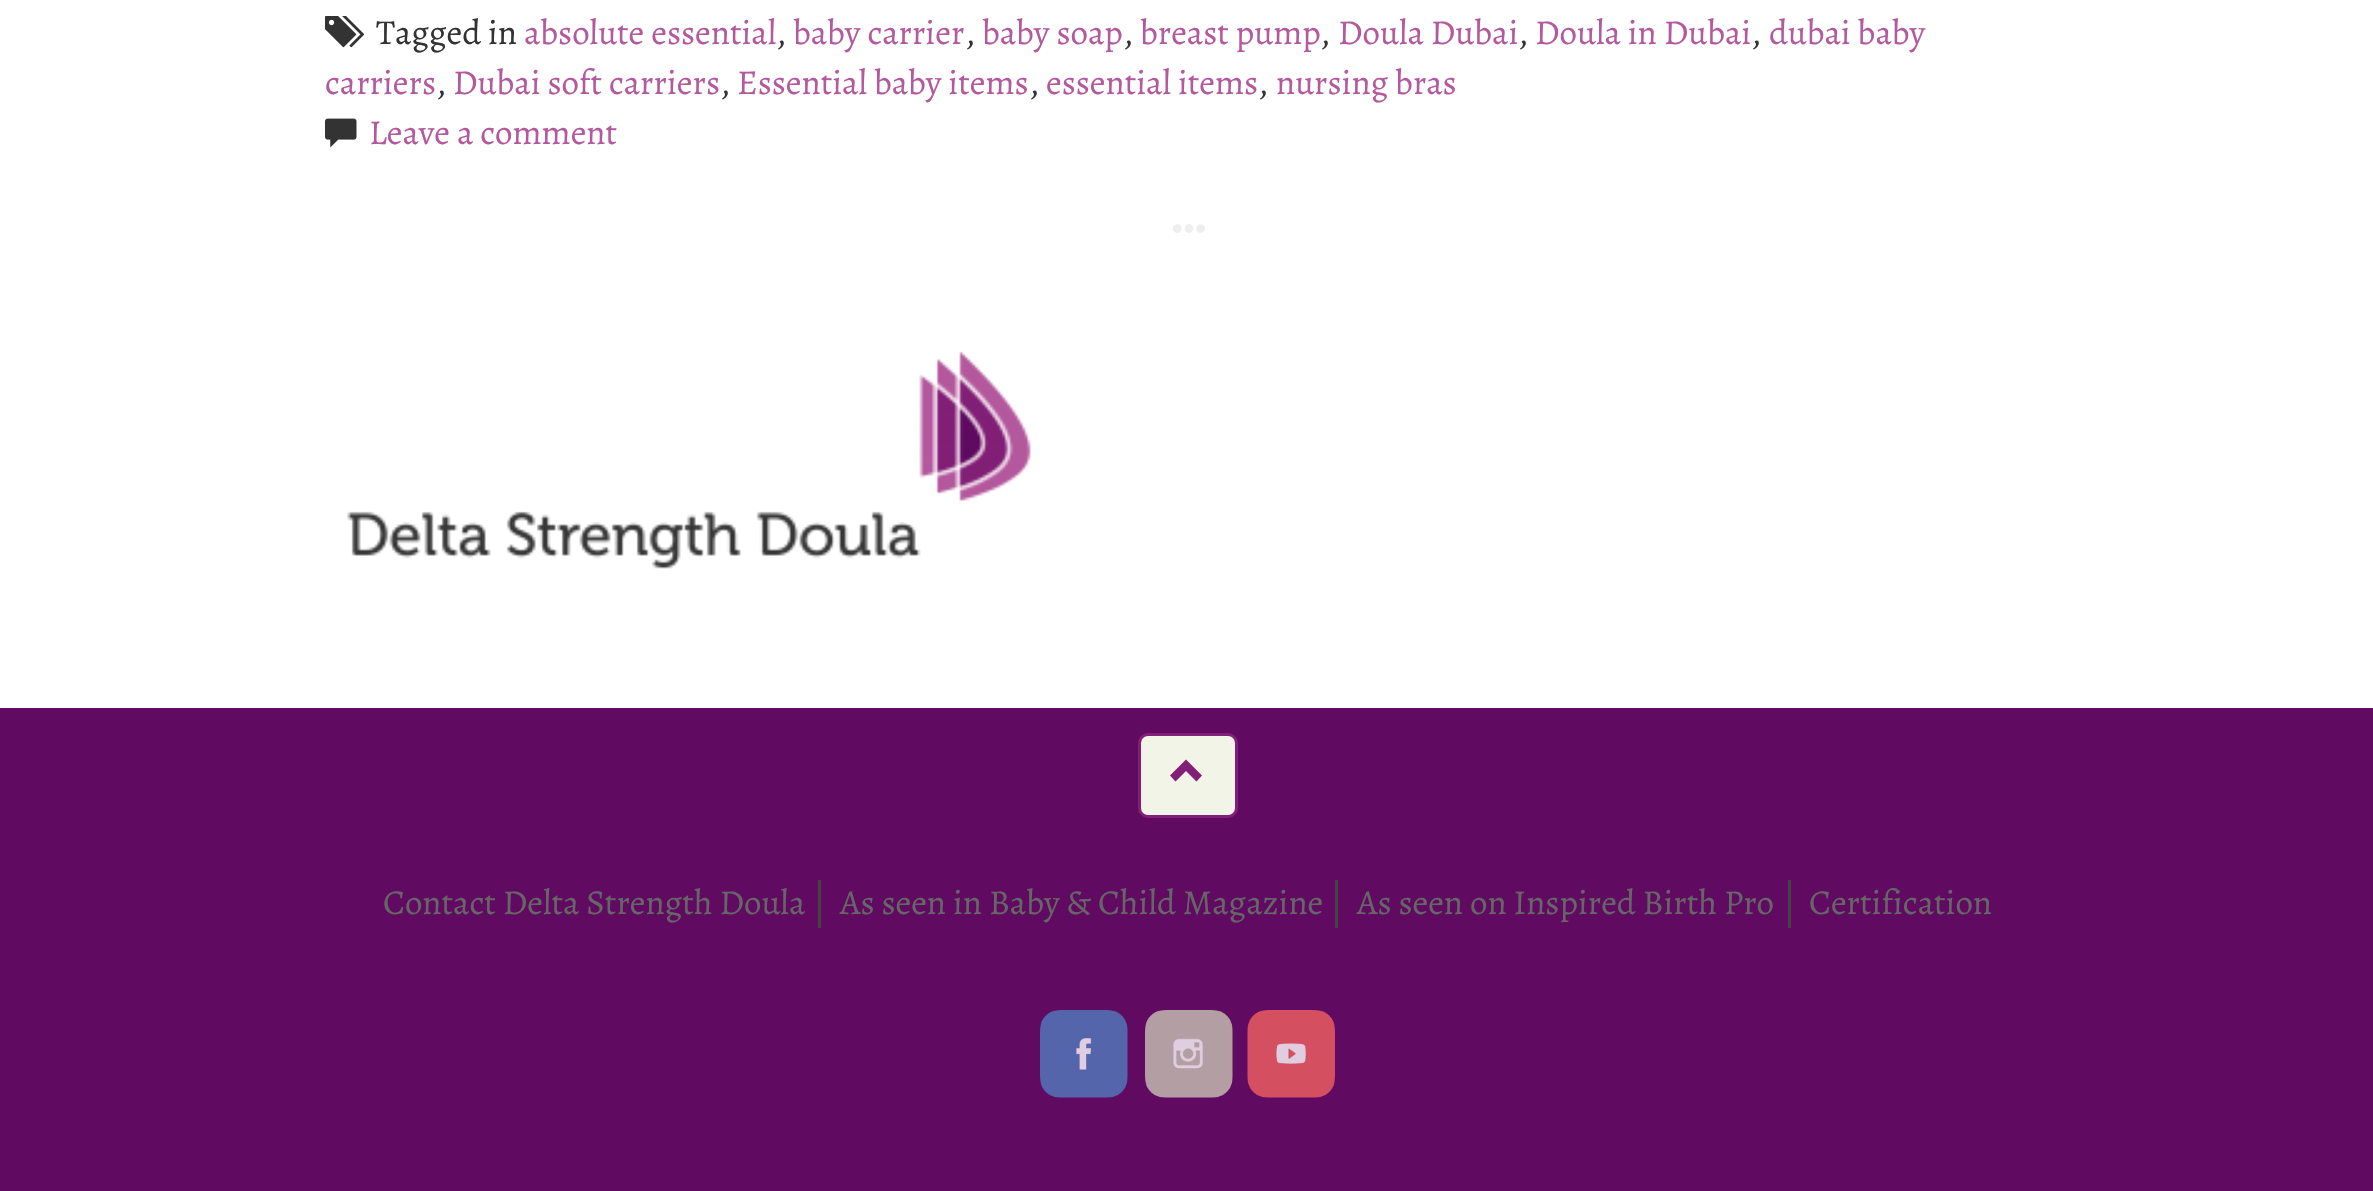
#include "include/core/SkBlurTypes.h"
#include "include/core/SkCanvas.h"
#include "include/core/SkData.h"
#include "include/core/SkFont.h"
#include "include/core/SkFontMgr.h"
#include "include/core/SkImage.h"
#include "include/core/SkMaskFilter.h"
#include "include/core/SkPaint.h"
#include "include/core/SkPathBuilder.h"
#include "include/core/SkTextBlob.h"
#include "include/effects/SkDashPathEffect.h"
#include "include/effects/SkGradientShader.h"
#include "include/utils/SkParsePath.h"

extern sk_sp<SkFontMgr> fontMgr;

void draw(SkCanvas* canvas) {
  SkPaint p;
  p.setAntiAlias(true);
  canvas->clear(SK_ColorWHITE);
  canvas->drawImageRect(SkImages::DeferredFromEncodedData(SkData::MakeFromFileName("images/1.png")), SkRect::MakeLTRB(325, 16, 365, 48), SkSamplingOptions());
  canvas->drawImageRect(SkImages::DeferredFromEncodedData(SkData::MakeFromFileName("images/2.png")), SkRect::MakeLTRB(325, 118, 357, 148), SkSamplingOptions());
  canvas->drawImageRect(SkImages::DeferredFromEncodedData(SkData::MakeFromFileName("images/3.png")), SkRect::MakeLTRB(1173, 224, 1205, 233), SkSamplingOptions());
  canvas->drawImageRect(SkImages::DeferredFromEncodedData(SkData::MakeFromFileName("images/4.png")), SkRect::MakeLTRB(347, 351, 1031, 569), SkSamplingOptions());
  p.setColor(SkColorSetRGB(96, 10, 98));
  canvas->drawRect(SkRect::MakeLTRB(0, 708, 2373, 1191), p);
  p.setColor(SkColorSetRGB(241, 244, 230));
  canvas->drawRoundRect(SkRect::MakeLTRB(1139.5f, 734.5f, 1236.5f, 816.5f), 8.5f, 8.5f, p);
  p.setStyle(SkPaint::kStroke_Style);
  p.setStrokeWidth(3);
  p.setColor(SkColorSetRGB(130, 31, 118));
  canvas->drawRoundRect(SkRect::MakeLTRB(1139.5f, 734.5f, 1236.5f, 816.5f), 8.5f, 8.5f, p);
  p.setStyle(SkPaint::kFill_Style);
  canvas->drawPath(SkPathBuilder().moveTo(1202, 775.5f).lineTo(1196.5f, 781.5f).lineTo(1186, 771).lineTo(1175.5f, 781.5f).lineTo(1170, 775.5f).lineTo(1186, 759.5f).close().detach(), p);
  p.setColor(SkColorSetRGB(68, 68, 68));
  canvas->drawRect(SkRect::MakeLTRB(818, 880, 821, 928), p);
  canvas->drawRect(SkRect::MakeLTRB(1335, 880, 1338, 928), p);
  canvas->drawRect(SkRect::MakeLTRB(1788, 880, 1791, 928), p);
  canvas->drawImageRect(SkImages::DeferredFromEncodedData(SkData::MakeFromFileName("images/5.png")), SkRect::MakeLTRB(1040, 1010, 1128, 1098), SkSamplingOptions());
  canvas->drawImageRect(SkImages::DeferredFromEncodedData(SkData::MakeFromFileName("images/6.png")), SkRect::MakeLTRB(1145, 1010, 1233, 1098), SkSamplingOptions());
  canvas->drawImageRect(SkImages::DeferredFromEncodedData(SkData::MakeFromFileName("images/7.png")), SkRect::MakeLTRB(1247, 1010, 1335, 1098), SkSamplingOptions());
  SkFont font1(fontMgr->matchFamilyStyle("Alegreya", SkFontStyle::Normal()), 35);
  font1.setSubpixel(true);
  p.setColor(SkColorSetRGB(51, 51, 51));
  canvas->drawString("Tagged in", 376, 44, font1, p);
  p.setColor(SkColorSetRGB(180, 89, 157));
  canvas->drawString("absolute essential", 524, 44, font1, p);
  p.setColor(SkColorSetRGB(51, 51, 51));
  canvas->drawString(",", 776, 44, font1, p);
  p.setColor(SkColorSetRGB(180, 89, 157));
  canvas->drawString("baby carrier", 793, 44, font1, p);
  p.setColor(SkColorSetRGB(51, 51, 51));
  canvas->drawString(",", 965, 44, font1, p);
  p.setColor(SkColorSetRGB(180, 89, 157));
  canvas->drawString("baby soap", 982, 44, font1, p);
  p.setColor(SkColorSetRGB(51, 51, 51));
  canvas->drawString(",", 1123, 44, font1, p);
  p.setColor(SkColorSetRGB(180, 89, 157));
  canvas->drawString("breast pump", 1140, 44, font1, p);
  p.setColor(SkColorSetRGB(51, 51, 51));
  canvas->drawString(",", 1320, 44, font1, p);
  p.setColor(SkColorSetRGB(180, 89, 157));
  canvas->drawString("Doula Dubai", 1338, 44, font1, p);
  p.setColor(SkColorSetRGB(51, 51, 51));
  canvas->drawString(",", 1518, 44, font1, p);
  p.setColor(SkColorSetRGB(180, 89, 157));
  canvas->drawString("Doula in Dubai", 1535, 44, font1, p);
  p.setColor(SkColorSetRGB(51, 51, 51));
  canvas->drawString(",", 1751, 44, font1, p);
  p.setColor(SkColorSetRGB(180, 89, 157));
  canvas->drawString("dubai baby", 1769, 44, font1, p);
  canvas->drawString("carriers", 325, 94, font1, p);
  p.setColor(SkColorSetRGB(51, 51, 51));
  canvas->drawString(",", 436, 94, font1, p);
  p.setColor(SkColorSetRGB(180, 89, 157));
  canvas->drawString("Dubai soft carriers", 453, 94, font1, p);
  p.setColor(SkColorSetRGB(51, 51, 51));
  canvas->drawString(",", 720, 94, font1, p);
  p.setColor(SkColorSetRGB(180, 89, 157));
  canvas->drawString("Essential baby items", 737, 94, font1, p);
  p.setColor(SkColorSetRGB(51, 51, 51));
  canvas->drawString(",", 1029, 94, font1, p);
  p.setColor(SkColorSetRGB(180, 89, 157));
  canvas->drawString("essential items", 1046, 94, font1, p);
  p.setColor(SkColorSetRGB(51, 51, 51));
  canvas->drawString(",", 1258, 94, font1, p);
  p.setColor(SkColorSetRGB(180, 89, 157));
  canvas->drawString("nursing bras", 1276, 94, font1, p);
  canvas->drawString("Leave a comment", 369, 144, font1, p);
  p.setColor(SkColorSetRGB(102, 102, 102));
  canvas->drawString("Contact Delta Strength Doula", 383, 914, font1, p);
  canvas->drawString("As seen in Baby & Child Magazine", 840, 914, font1, p);
  canvas->drawString("As seen on Inspired Birth Pro", 1357, 914, font1, p);
  canvas->drawString("Certification", 1809, 914, font1, p);
}
